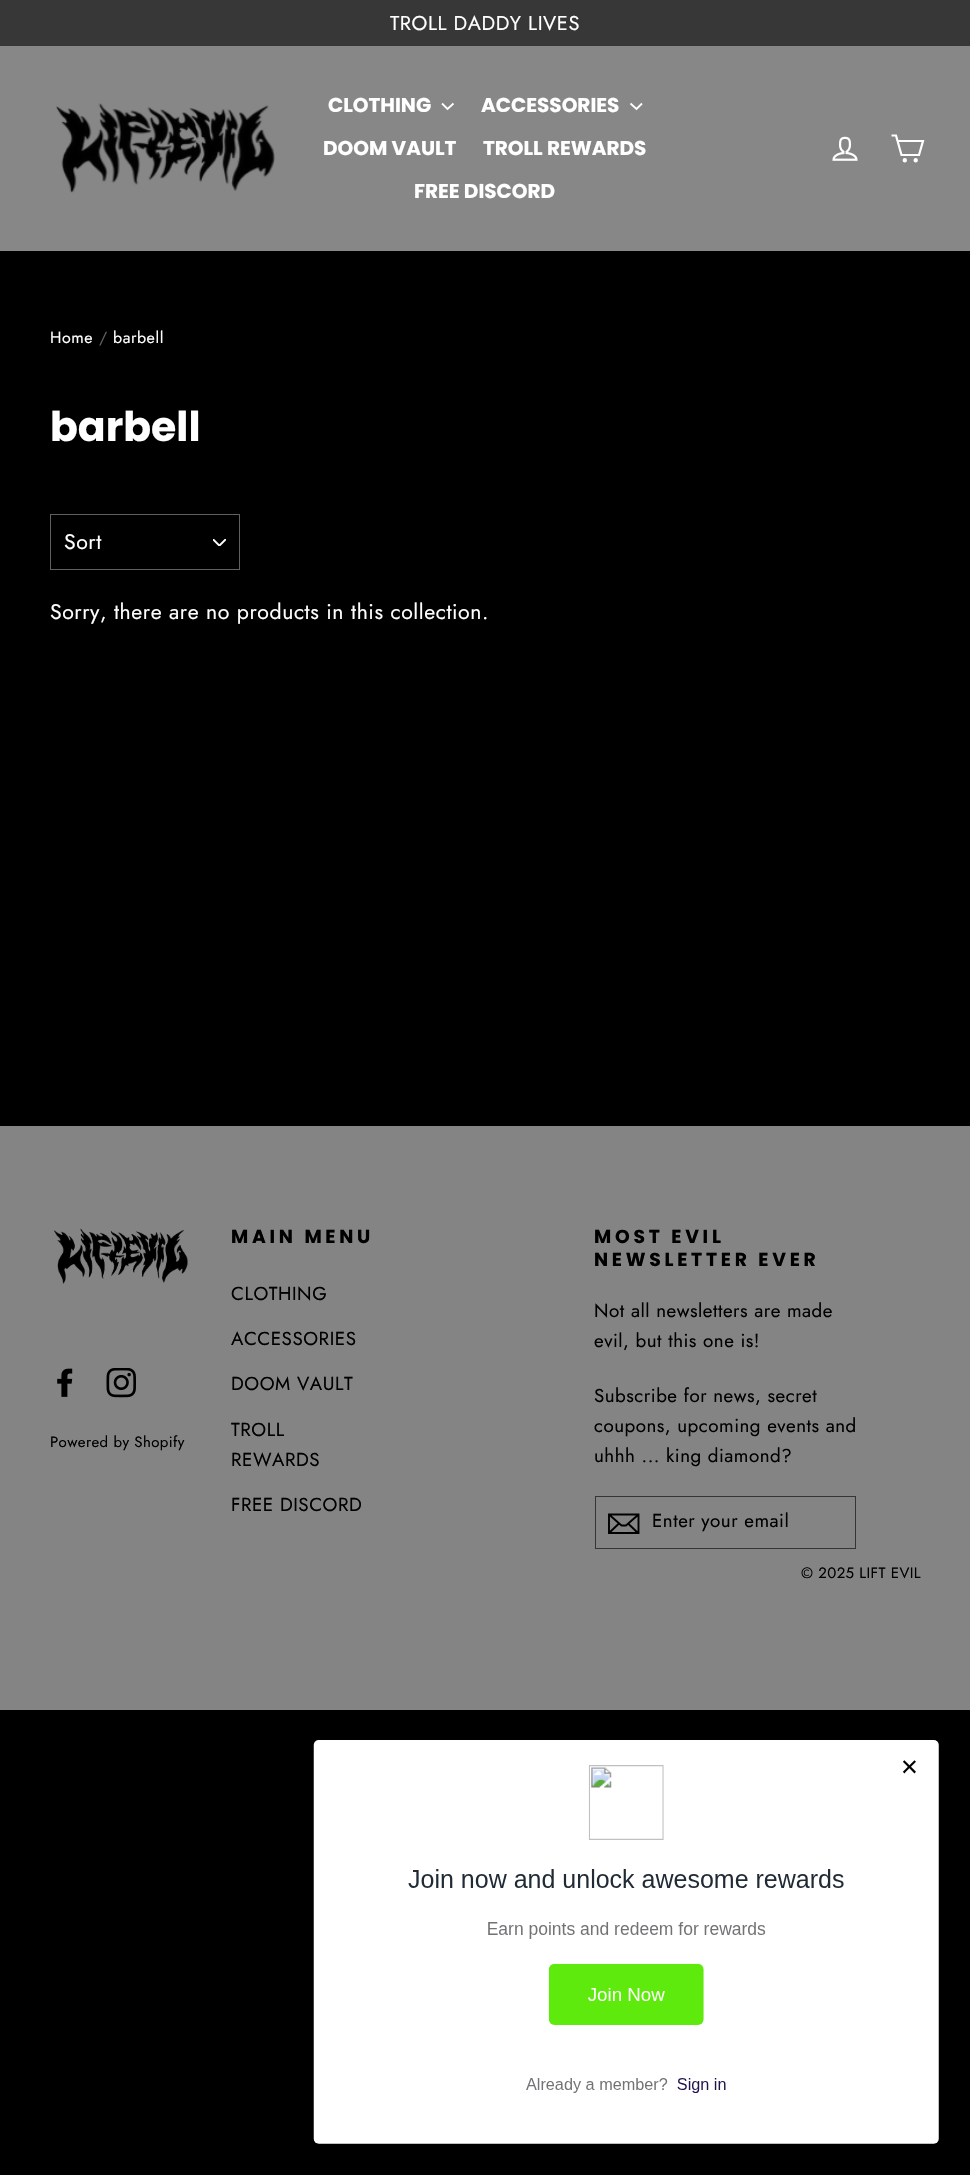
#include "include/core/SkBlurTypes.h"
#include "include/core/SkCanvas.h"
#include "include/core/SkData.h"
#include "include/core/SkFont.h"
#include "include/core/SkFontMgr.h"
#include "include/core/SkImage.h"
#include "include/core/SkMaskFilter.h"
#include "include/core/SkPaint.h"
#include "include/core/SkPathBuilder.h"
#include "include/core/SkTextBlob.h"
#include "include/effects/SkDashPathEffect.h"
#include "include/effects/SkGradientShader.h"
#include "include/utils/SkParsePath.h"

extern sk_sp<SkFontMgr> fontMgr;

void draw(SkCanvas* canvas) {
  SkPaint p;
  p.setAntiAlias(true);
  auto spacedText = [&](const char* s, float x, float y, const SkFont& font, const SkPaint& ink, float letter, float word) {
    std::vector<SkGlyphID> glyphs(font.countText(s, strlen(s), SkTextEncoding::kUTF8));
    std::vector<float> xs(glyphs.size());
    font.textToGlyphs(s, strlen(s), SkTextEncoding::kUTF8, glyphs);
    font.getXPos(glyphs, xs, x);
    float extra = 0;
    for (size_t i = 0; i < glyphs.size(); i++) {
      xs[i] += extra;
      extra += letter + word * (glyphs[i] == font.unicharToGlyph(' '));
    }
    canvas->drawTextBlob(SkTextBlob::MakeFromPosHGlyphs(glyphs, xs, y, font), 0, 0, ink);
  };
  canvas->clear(SK_ColorBLACK);
  p.setColor(SkColorSetRGB(55, 55, 55));
  canvas->drawRect(SkRect::MakeLTRB(0, 0, 970, 46), p);
  p.setColor(SkColorSetRGB(135, 135, 135));
  canvas->drawRect(SkRect::MakeLTRB(0, 46, 970, 251), p);
  canvas->drawImageRect(SkImages::DeferredFromEncodedData(SkData::MakeFromFileName("images/1.png")), SkRect::MakeLTRB(56, 103, 275, 193), SkSamplingOptions());
  p.setStyle(SkPaint::kStroke_Style);
  p.setStrokeWidth(1.8f);
  p.setColor(SK_ColorWHITE);
  canvas->drawPath(SkPathBuilder().moveTo(442, 103.5f).lineTo(447.5f, 109).lineTo(453.5f, 103.5f).detach(), p);
  canvas->drawPath(SkPathBuilder().moveTo(630.5f, 103.5f).lineTo(636.5f, 109).lineTo(642, 103.5f).detach(), p);
  canvas->drawImageRect(SkImages::DeferredFromEncodedData(SkData::MakeFromFileName("images/2.png")), SkRect::MakeLTRB(832, 136, 858, 161), SkSamplingOptions());
  p.setStrokeWidth(2.2f);
  canvas->drawPath(SkPathBuilder().moveTo(897.5f, 141).lineTo(923, 141).lineTo(919, 155).lineTo(901.5f, 155).lineTo(896, 135.5f).lineTo(891.5f, 135.5f).detach(), p);
  canvas->drawCircle(904.8f, 160.2f, 1.1f, p);
  canvas->drawCircle(915.7f, 160.2f, 1.1f, p);
  canvas->drawImageRect(SkImages::DeferredFromEncodedData(SkData::MakeFromFileName("images/3.png")), SkRect::MakeLTRB(213, 539, 226, 546), SkSamplingOptions());
  p.setStrokeWidth(1);
  p.setColor(SkColorSetRGB(96, 96, 96));
  canvas->drawRect(SkRect::MakeLTRB(50.5f, 514.5f, 239.5f, 569.5f), p);
  p.setStyle(SkPaint::kFill_Style);
  p.setColor(SkColorSetRGB(132, 132, 132));
  canvas->drawRect(SkRect::MakeLTRB(0, 1126, 970, 1710), p);
  canvas->drawImageRect(SkImages::DeferredFromEncodedData(SkData::MakeFromFileName("images/4.png")), SkRect::MakeLTRB(54, 1228, 188, 1284), SkSamplingOptions());
  canvas->drawImageRect(SkImages::DeferredFromEncodedData(SkData::MakeFromFileName("images/5.png")), SkRect::MakeLTRB(57, 1368, 73, 1397), SkSamplingOptions());
  canvas->drawImageRect(SkImages::DeferredFromEncodedData(SkData::MakeFromFileName("images/6.png")), SkRect::MakeLTRB(106, 1368, 136, 1398), SkSamplingOptions());
  p.setStyle(SkPaint::kStroke_Style);
  p.setColor(SkColorSetRGB(53, 53, 53));
  canvas->drawRect(SkRect::MakeLTRB(595.5f, 1496.5f, 855.5f, 1548.5f), p);
  p.setStrokeWidth(1.9f);
  p.setColor(SK_ColorBLACK);
  canvas->drawPath(SkPathBuilder().moveTo(638.5f, 1533).lineTo(609, 1533).lineTo(609, 1514.5f).lineTo(638.5f, 1514.5f).close().moveTo(609, 1514.5f).lineTo(621.5f, 1525.5f).lineTo(626, 1525.5f).lineTo(638.5f, 1514.5f).moveTo(619, 1523.5f).lineTo(609.5f, 1532.5f).moveTo(638, 1533).lineTo(628, 1523.5f).detach(), p);
  canvas->drawImageRect(SkImages::DeferredFromEncodedData(SkData::MakeFromFileName("images/7.png")), SkRect::MakeLTRB(313, 1740, 939, 2144), SkSamplingOptions());
  SkFont font1(fontMgr->matchFamilyStyle("Jost", SkFontStyle::Normal()), 20);
  font1.setSubpixel(true);
  p.setStyle(SkPaint::kFill_Style);
  p.setColor(SK_ColorWHITE);
  spacedText("TROLL DADDY LIVES", 390, 30, font1, p, 0.55f, 0);
  SkFont font2(fontMgr->matchFamilyStyle("Poppins", SkFontStyle::Bold()), 20);
  font2.setSubpixel(true);
  canvas->drawString("CLOTHING", 328, 112, font2, p);
  canvas->drawString("ACCESSORIES", 481, 112, font2, p);
  canvas->drawString("DOOM VAULT", 323, 155, font2, p);
  canvas->drawString("TROLL REWARDS", 483, 155, font2, p);
  canvas->drawString("FREE DISCORD", 414, 198, font2, p);
  SkFont font3(fontMgr->matchFamilyStyle("Jost", SkFontStyle::Normal()), 16);
  font3.setSubpixel(true);
  spacedText("Home", 50, 343, font3, p, 0.55f, 0);
  p.setColor(SkColorSetRGB(96, 96, 96));
  spacedText("/", 99, 343, font3, p, 0.55f, 0);
  p.setColor(SK_ColorWHITE);
  spacedText("barbell", 113, 343, font3, p, 0.55f, 0);
  SkFont font4(fontMgr->matchFamilyStyle("Poppins", SkFontStyle::Bold()), 41);
  font4.setSubpixel(true);
  canvas->drawString("barbell", 50, 441, font4, p);
  SkFont font5(fontMgr->matchFamilyStyle("Jost", SkFontStyle::Normal()), 21.25f);
  font5.setSubpixel(true);
  spacedText("Sort", 64, 549, font5, p, 0.55f, 0);
  spacedText("Sorry, there are no products in this collection.", 50, 619, font5, p, 0.55f, 0);
  SkFont font6(fontMgr->matchFamilyStyle("Jost", SkFontStyle::Normal()), 15);
  font6.setSubpixel(true);
  p.setColor(SK_ColorBLACK);
  spacedText("Powered by Shopify", 50, 1447, font6, p, 0.4f, 0);
  SkFont font7(fontMgr->matchFamilyStyle("Poppins", SkFontStyle::Bold()), 18.75f);
  font7.setSubpixel(true);
  spacedText("MAIN MENU", 231, 1243, font7, p, 3.75f, 0);
  SkFont font8(fontMgr->matchFamilyStyle("Jost", SkFontStyle::Normal()), 18.75f);
  font8.setSubpixel(true);
  spacedText("CLOTHING", 231, 1300, font8, p, 0.55f, 0);
  spacedText("ACCESSORIES", 231, 1345, font8, p, 0.55f, 0);
  spacedText("DOOM VAULT", 231, 1390, font8, p, 0.55f, 0);
  spacedText("TROLL", 231, 1436, font8, p, 0.55f, 0);
  spacedText("REWARDS", 231, 1466, font8, p, 0.55f, 0);
  spacedText("FREE DISCORD", 231, 1511, font8, p, 0.55f, 0);
  spacedText("MOST EVIL", 594, 1243, font7, p, 3.75f, 0);
  spacedText("NEWSLETTER EVER", 594, 1266, font7, p, 3.75f, 0);
  spacedText("Not all newsletters are made", 594, 1317, font8, p, 0.5f, 0);
  spacedText("evil, but this one is!", 594, 1347, font8, p, 0.5f, 0);
  spacedText("Subscribe for news, secret", 594, 1402, font8, p, 0.5f, 0);
  spacedText("coupons, upcoming events and", 594, 1432, font8, p, 0.5f, 0);
  spacedText("uhhh ... king diamond?", 594, 1462, font8, p, 0.5f, 0);
  spacedText("Enter your email", 652, 1527, font8, p, 0.5f, 0);
  spacedText("© 2025 LIFT EVIL", 801, 1578, font6, p, 0.4f, 0);
}
